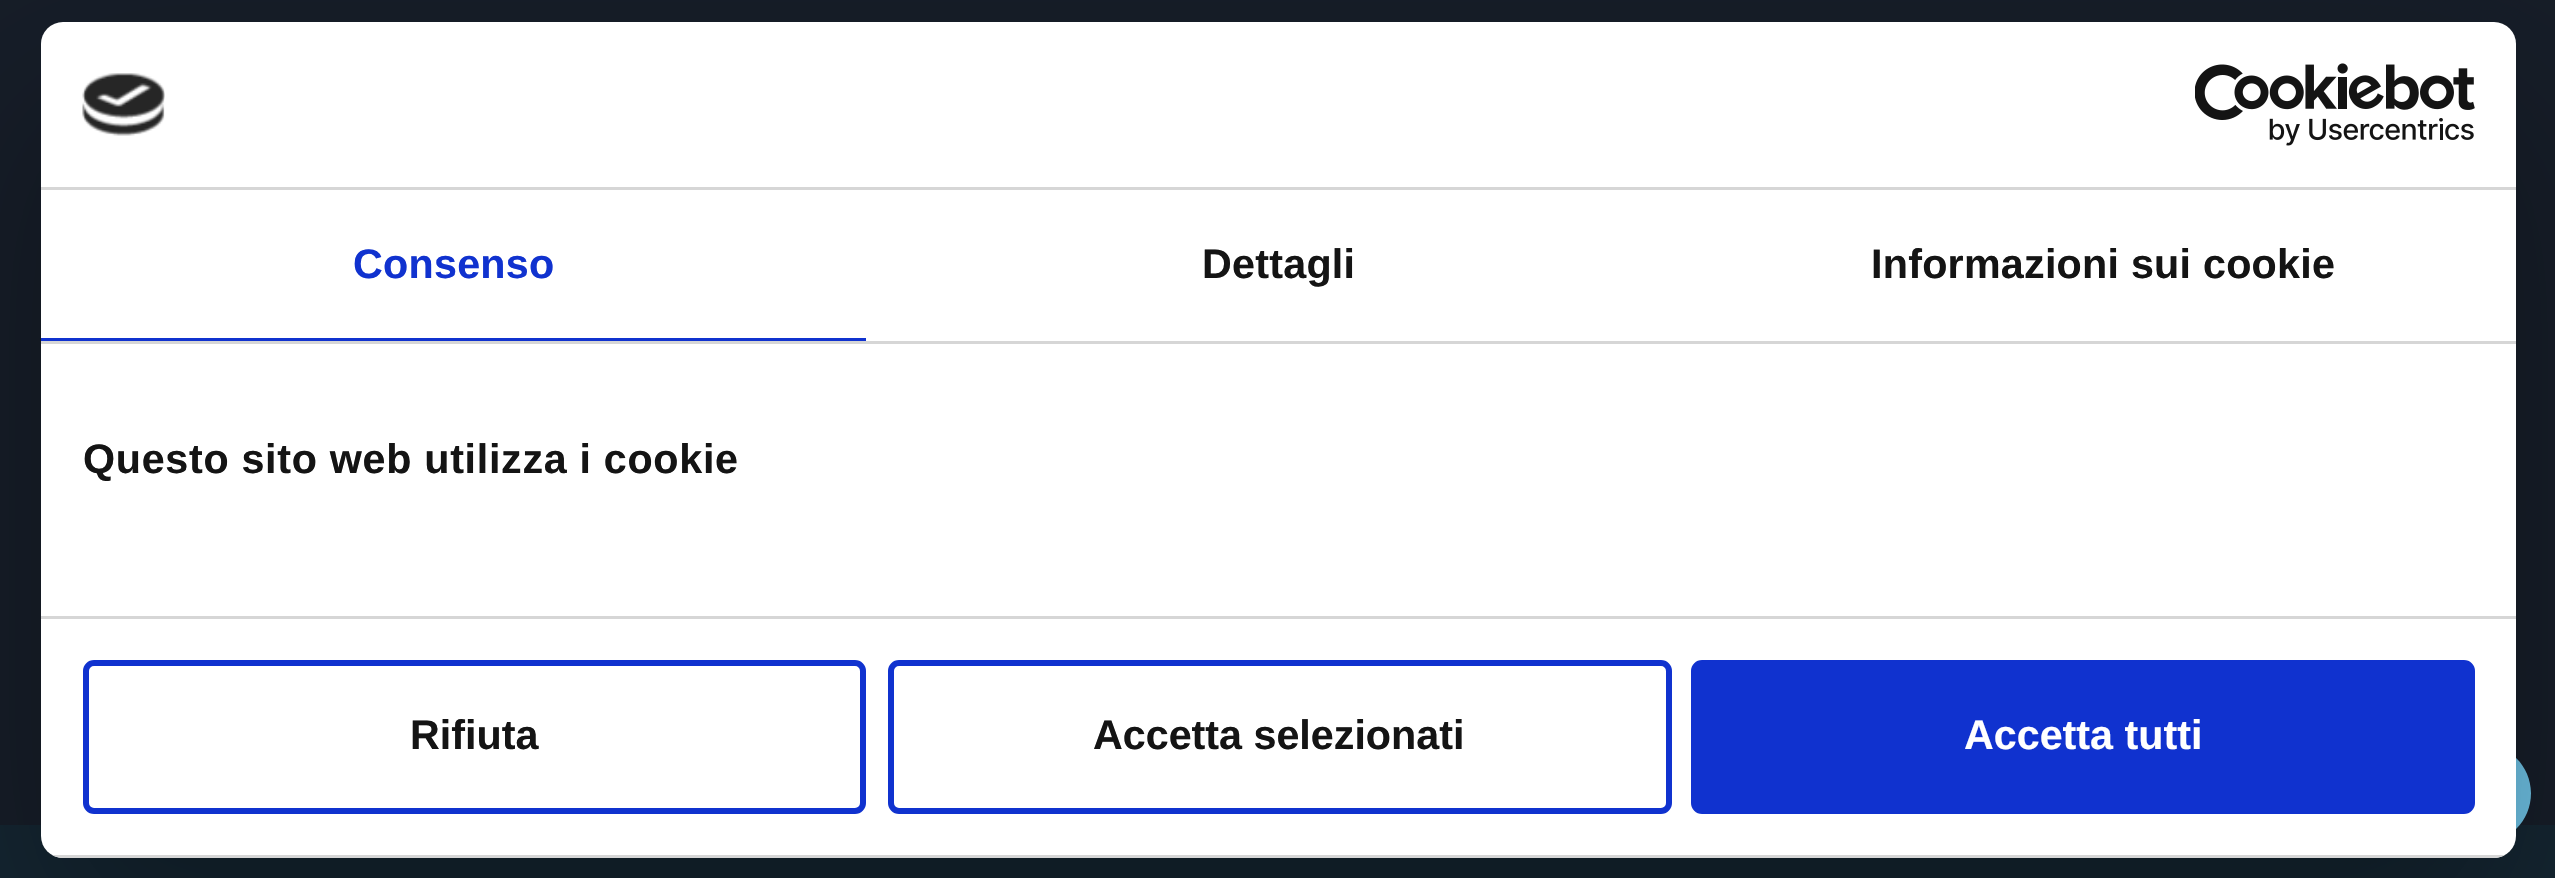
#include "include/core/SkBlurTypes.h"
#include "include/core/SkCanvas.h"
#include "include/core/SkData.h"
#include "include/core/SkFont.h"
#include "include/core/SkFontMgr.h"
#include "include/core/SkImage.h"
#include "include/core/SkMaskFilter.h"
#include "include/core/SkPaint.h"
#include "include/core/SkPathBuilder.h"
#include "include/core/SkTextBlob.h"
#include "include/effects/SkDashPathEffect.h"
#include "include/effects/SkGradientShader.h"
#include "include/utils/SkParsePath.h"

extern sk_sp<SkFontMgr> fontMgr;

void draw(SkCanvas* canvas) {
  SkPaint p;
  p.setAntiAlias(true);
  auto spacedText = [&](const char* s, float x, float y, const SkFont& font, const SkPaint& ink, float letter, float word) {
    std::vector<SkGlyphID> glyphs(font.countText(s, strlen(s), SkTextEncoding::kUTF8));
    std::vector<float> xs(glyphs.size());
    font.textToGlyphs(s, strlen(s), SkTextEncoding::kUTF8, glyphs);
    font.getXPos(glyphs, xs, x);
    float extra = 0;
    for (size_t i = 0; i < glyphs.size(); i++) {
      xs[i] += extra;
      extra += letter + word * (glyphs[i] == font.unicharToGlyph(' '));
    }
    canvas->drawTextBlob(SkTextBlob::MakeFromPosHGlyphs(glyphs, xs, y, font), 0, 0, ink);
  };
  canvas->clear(SkColorSetRGB(22, 29, 40));
  p.setColor(SkColorSetRGB(20, 37, 49));
  canvas->drawRect(SkRect::MakeLTRB(0, 825, 2555, 878), p);
  p.setColor(SkColorSetRGB(110, 193, 228));
  canvas->drawPath(SkPathBuilder().moveTo(2433, 793).cubicTo(2433, 766, 2455, 744, 2482, 744).cubicTo(2509, 744, 2531, 766, 2531, 793).cubicTo(2531, 821, 2509, 843, 2482, 843).cubicTo(2455, 843, 2433, 821, 2433, 793).close().moveTo(2478, 771).lineTo(2452, 798).cubicTo(2450, 800, 2450, 803, 2452, 804).lineTo(2455, 808).cubicTo(2457, 810, 2460, 810, 2462, 808).lineTo(2482, 788).lineTo(2502, 808).cubicTo(2504, 810, 2507, 810, 2509, 808).lineTo(2512, 804).cubicTo(2514, 803, 2514, 800, 2512, 798).lineTo(2485, 771).cubicTo(2483, 769, 2480, 769, 2478, 771).close().detach(), p);
  p.setColor(SkColorSetARGB(77, 0, 0, 0));
  p.setMaskFilter(SkMaskFilter::MakeBlur(kNormal_SkBlurStyle, 93.5f));
  canvas->drawRoundRect(SkRect::MakeLTRB(41, 110, 2516, 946), 22, 22, p);
  p.setMaskFilter(nullptr);
  p.setColor(SK_ColorWHITE);
  canvas->drawRoundRect(SkRect::MakeLTRB(41, 22, 2516, 858), 22, 22, p);
  p.setColor(SkColorSetRGB(214, 214, 214));
  canvas->drawRect(SkRect::MakeLTRB(41, 187, 2516, 190), p);
  canvas->drawImageRect(SkImages::DeferredFromEncodedData(SkData::MakeFromFileName("images/1.png")), SkRect::MakeLTRB(82, 73, 165, 136), SkSamplingOptions());
  canvas->drawImageRect(SkImages::DeferredFromEncodedData(SkData::MakeFromFileName("images/2.png")), SkRect::MakeLTRB(2195, 63, 2475, 146), SkSamplingOptions());
  canvas->drawRect(SkRect::MakeLTRB(41, 341, 2516, 344), p);
  p.setColor(SkColorSetRGB(16, 50, 207));
  canvas->drawRect(SkRect::MakeLTRB(41, 338, 866, 341), p);
  p.setColor(SkColorSetRGB(214, 214, 214));
  canvas->drawRect(SkRect::MakeLTRB(41, 616, 2516, 619), p);
  canvas->save();
  canvas->clipPath(SkPathBuilder().moveTo(63, 22).lineTo(2494, 22).cubicTo(2506, 22, 2516, 32, 2516, 44).lineTo(2516, 836).cubicTo(2516, 848, 2506, 858, 2494, 858).lineTo(63, 858).cubicTo(51, 858, 41, 848, 41, 836).lineTo(41, 44).cubicTo(41, 32, 51, 22, 63, 22).close().detach(), true);
  canvas->drawRect(SkRect::MakeLTRB(52, 855, 2505, 858), p);
  canvas->restore();
  p.setStyle(SkPaint::kStroke_Style);
  p.setStrokeWidth(6);
  p.setColor(SkColorSetRGB(16, 50, 207));
  canvas->drawRoundRect(SkRect::MakeLTRB(86, 663, 863, 811), 8, 8, p);
  canvas->drawRoundRect(SkRect::MakeLTRB(891, 663, 1669, 811), 8, 8, p);
  p.setStyle(SkPaint::kFill_Style);
  canvas->drawRoundRect(SkRect::MakeLTRB(1694, 663, 2472, 811), 8, 8, p);
  p.setStyle(SkPaint::kStroke_Style);
  canvas->drawRoundRect(SkRect::MakeLTRB(1694, 663, 2472, 811), 8, 8, p);
  SkFont font1(fontMgr->matchFamilyStyle("Liberation Sans", SkFontStyle::Bold()), 41.25f);
  font1.setSubpixel(true);
  p.setStyle(SkPaint::kFill_Style);
  spacedText("Consenso", 353, 278, font1, p, 0.25f, 0);
  p.setColor(SkColorSetRGB(20, 20, 20));
  spacedText("Dettagli", 1202, 278, font1, p, 0.25f, 0);
  spacedText("Informazioni sui cookie", 1871, 278, font1, p, 0.25f, 0);
  spacedText("Questo sito web utilizza i cookie", 83, 473, font1, p, 0.7f, 0);
  canvas->drawString("Rifiuta", 410, 749, font1, p);
  canvas->drawString("Accetta selezionati", 1093, 749, font1, p);
  p.setColor(SK_ColorWHITE);
  canvas->drawString("Accetta tutti", 1964, 749, font1, p);
}
